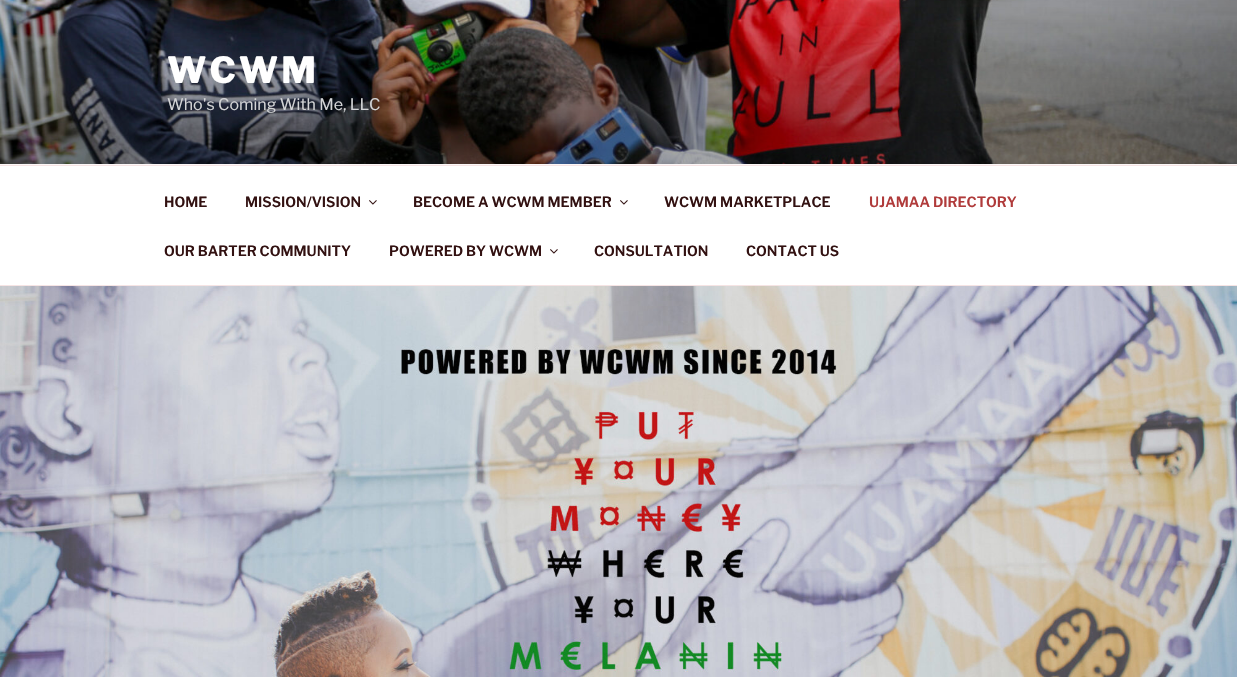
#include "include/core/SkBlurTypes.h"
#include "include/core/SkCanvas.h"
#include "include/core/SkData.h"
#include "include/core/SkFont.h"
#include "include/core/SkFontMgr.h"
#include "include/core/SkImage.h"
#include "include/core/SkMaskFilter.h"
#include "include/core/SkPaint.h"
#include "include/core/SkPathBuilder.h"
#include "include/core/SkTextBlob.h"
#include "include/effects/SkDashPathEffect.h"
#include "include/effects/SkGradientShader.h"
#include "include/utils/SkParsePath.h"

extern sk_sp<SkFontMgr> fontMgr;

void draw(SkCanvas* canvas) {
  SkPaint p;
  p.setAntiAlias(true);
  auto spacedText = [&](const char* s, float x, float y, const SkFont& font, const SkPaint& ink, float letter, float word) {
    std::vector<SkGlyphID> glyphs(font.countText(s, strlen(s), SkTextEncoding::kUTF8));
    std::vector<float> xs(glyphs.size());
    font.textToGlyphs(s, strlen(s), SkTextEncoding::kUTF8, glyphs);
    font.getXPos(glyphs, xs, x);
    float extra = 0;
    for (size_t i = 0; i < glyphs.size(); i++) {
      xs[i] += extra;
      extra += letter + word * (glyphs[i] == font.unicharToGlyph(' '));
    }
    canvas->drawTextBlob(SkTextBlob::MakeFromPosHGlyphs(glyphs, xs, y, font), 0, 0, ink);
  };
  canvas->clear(SK_ColorWHITE);
  p.setColor(SkColorSetRGB(252, 247, 247));
  canvas->drawRect(SkRect::MakeLTRB(0, 164, 1237, 165), p);
  canvas->drawImageRect(SkImages::DeferredFromEncodedData(SkData::MakeFromFileName("images/1.png")), SkRect::MakeLTRB(0, 0, 1237, 164), SkSamplingOptions());
  p.setColor(SkColorSetRGB(246, 228, 228));
  canvas->drawRect(SkRect::MakeLTRB(0, 165, 1237, 166), p);
  canvas->drawRect(SkRect::MakeLTRB(0, 285, 1237, 286), p);
  canvas->drawImageRect(SkImages::DeferredFromEncodedData(SkData::MakeFromFileName("images/2.png")), SkRect::MakeLTRB(369, 200, 377, 205), SkSamplingOptions());
  canvas->drawImageRect(SkImages::DeferredFromEncodedData(SkData::MakeFromFileName("images/2.png")), SkRect::MakeLTRB(620, 200, 628, 205), SkSamplingOptions());
  canvas->drawImageRect(SkImages::DeferredFromEncodedData(SkData::MakeFromFileName("images/2.png")), SkRect::MakeLTRB(550, 249, 558, 254), SkSamplingOptions());
  canvas->drawImageRect(SkImages::DeferredFromEncodedData(SkData::MakeFromFileName("images/3.png")), SkRect::MakeLTRB(0, 286, 1237, 677), SkSamplingOptions());
  SkFont font1(fontMgr->matchFamilyStyle("Libre Franklin", SkFontStyle(100, SkFontStyle::kNormal_Width, SkFontStyle::kUpright_Slant)), 36);
  font1.setSubpixel(true);
  p.setColor(SK_ColorWHITE);
  spacedText("WCWM", 167, 83, font1, p, 3, 0);
  SkFont font2(fontMgr->matchFamilyStyle("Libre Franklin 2", SkFontStyle(100, SkFontStyle::kNormal_Width, SkFontStyle::kUpright_Slant)), 16);
  font2.setSubpixel(true);
  p.setColor(SkColorSetRGB(212, 213, 215));
  canvas->drawString("Who's Coming With Me, LLC", 167, 110, font2, p);
  SkFont font3(fontMgr->matchFamilyStyle("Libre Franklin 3", SkFontStyle(100, SkFontStyle::kNormal_Width, SkFontStyle::kUpright_Slant)), 14);
  font3.setSubpixel(true);
  p.setColor(SkColorSetRGB(50, 17, 17));
  canvas->drawString("HOME", 164, 207, font3, p);
  canvas->drawString("MISSION/VISION", 245, 207, font3, p);
  canvas->drawString("BECOME A WCWM MEMBER", 413, 207, font3, p);
  canvas->drawString("WCWM MARKETPLACE", 664, 207, font3, p);
  p.setColor(SkColorSetRGB(176, 59, 59));
  canvas->drawString("UJAMAA DIRECTORY", 869, 207, font3, p);
  p.setColor(SkColorSetRGB(50, 17, 17));
  canvas->drawString("OUR BARTER COMMUNITY", 164, 256, font3, p);
  canvas->drawString("POWERED BY WCWM", 389, 256, font3, p);
  canvas->drawString("CONSULTATION", 594, 256, font3, p);
  canvas->drawString("CONTACT US", 746, 256, font3, p);
}
